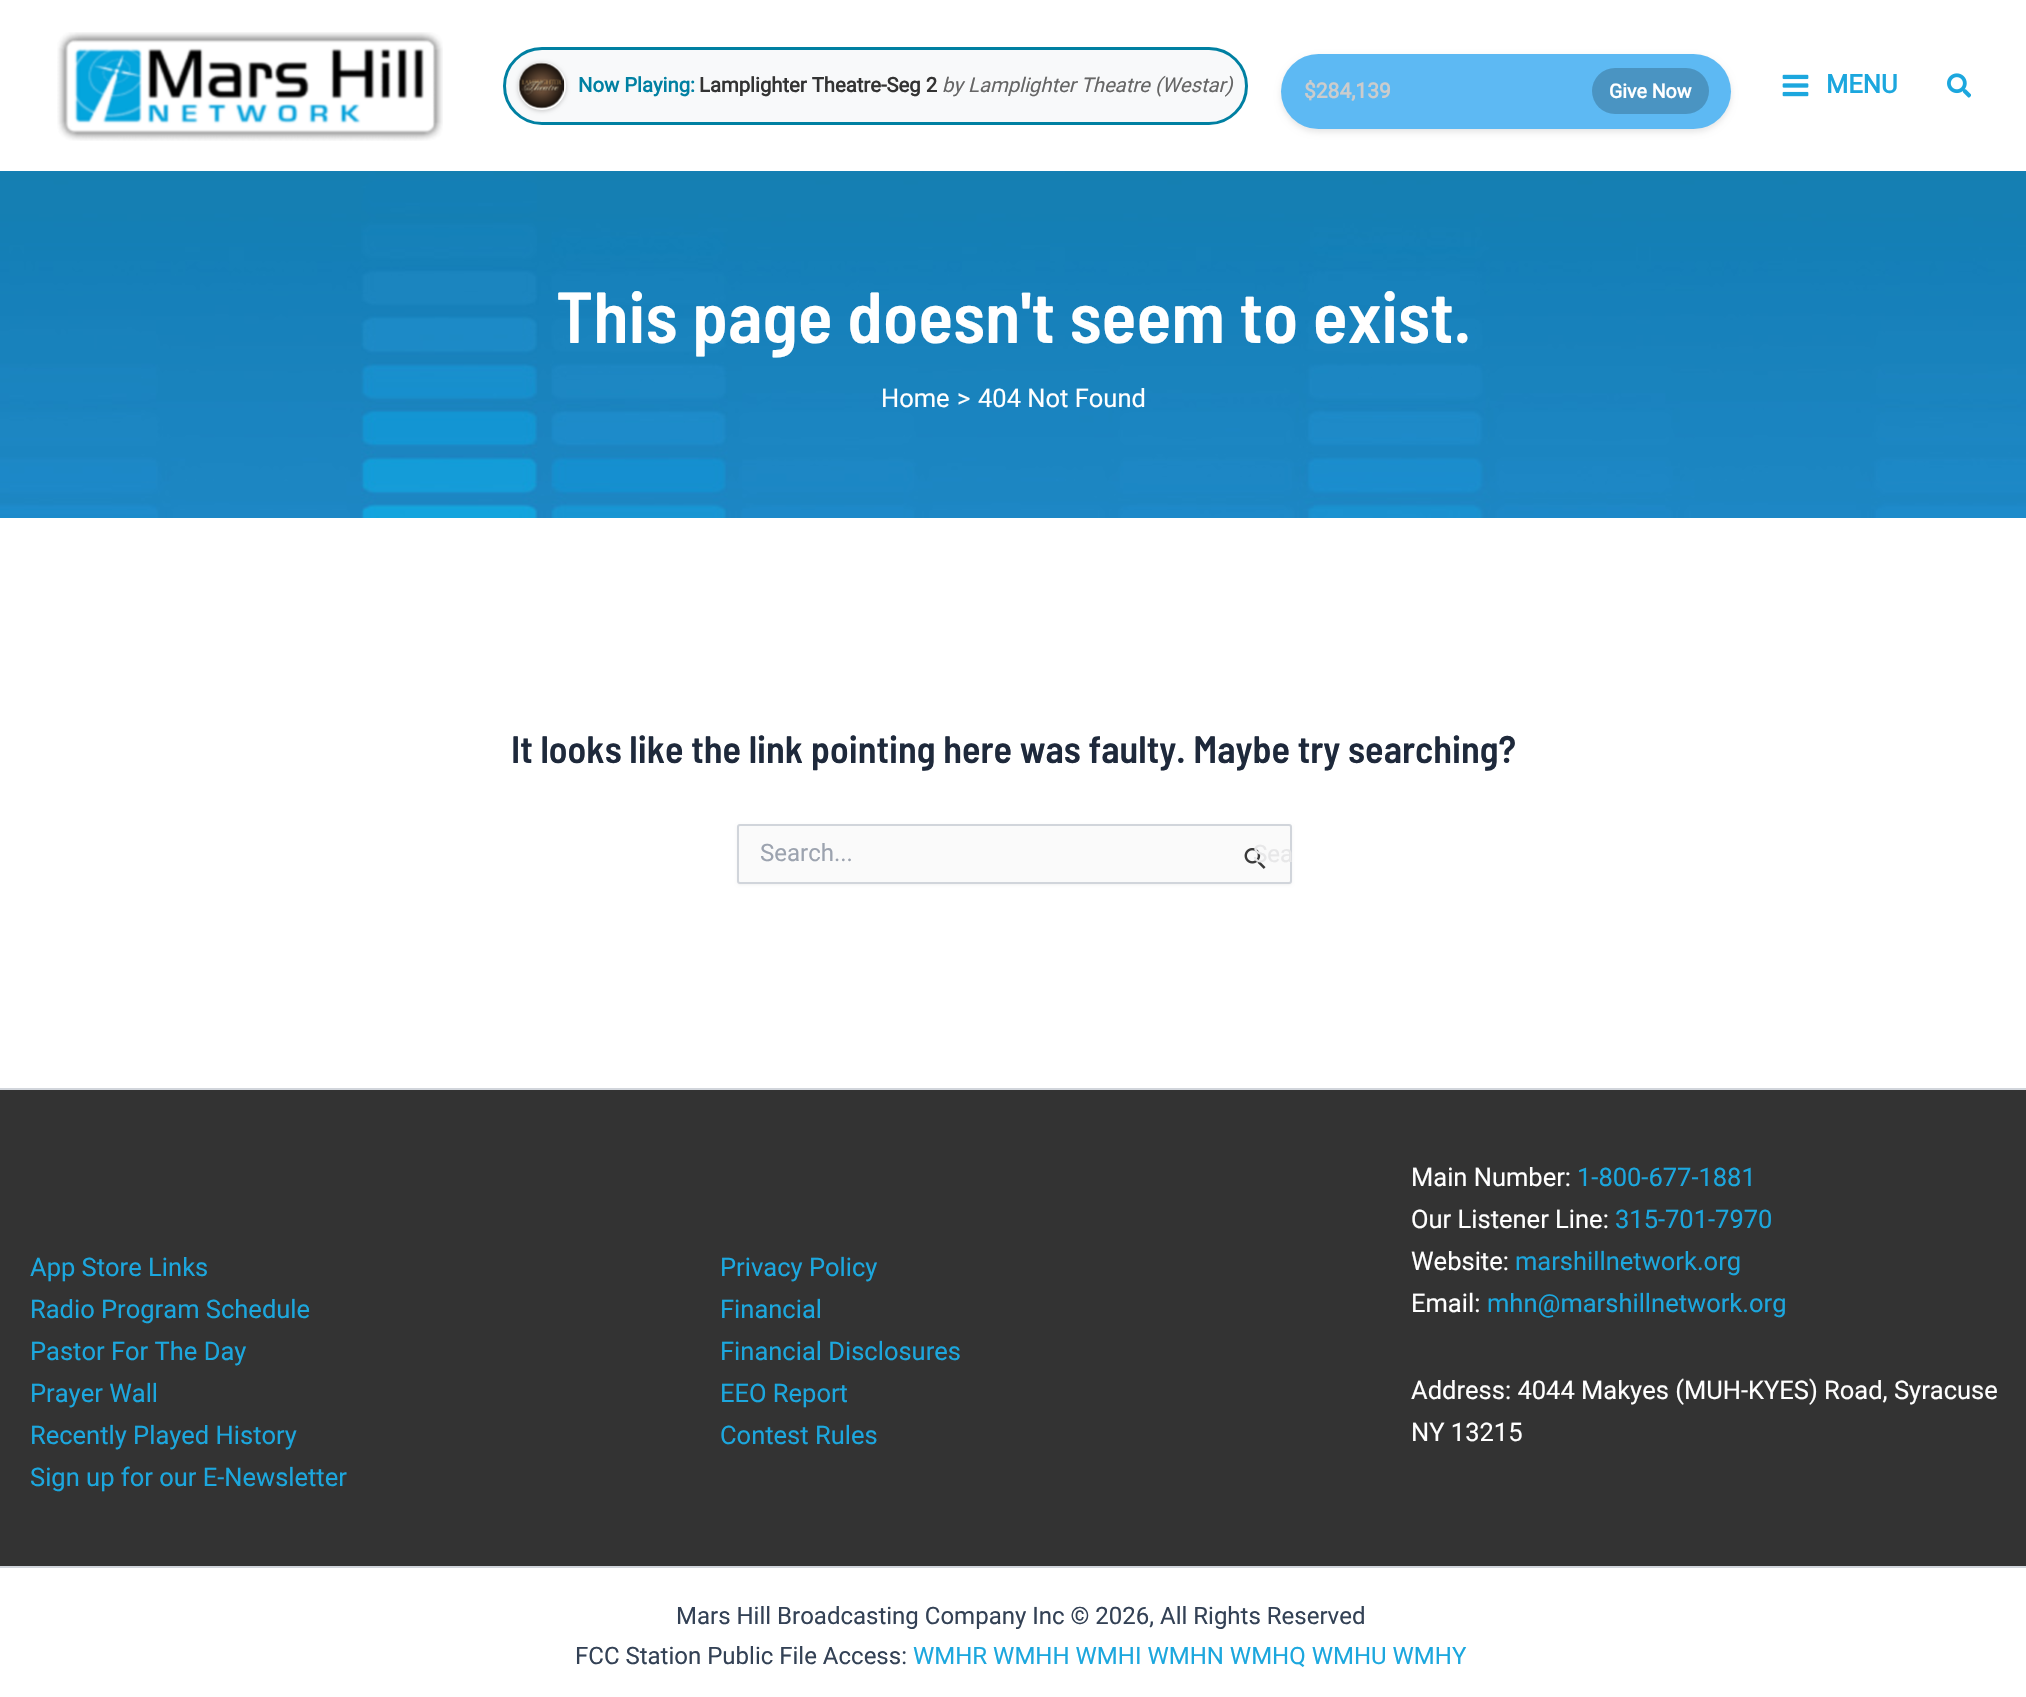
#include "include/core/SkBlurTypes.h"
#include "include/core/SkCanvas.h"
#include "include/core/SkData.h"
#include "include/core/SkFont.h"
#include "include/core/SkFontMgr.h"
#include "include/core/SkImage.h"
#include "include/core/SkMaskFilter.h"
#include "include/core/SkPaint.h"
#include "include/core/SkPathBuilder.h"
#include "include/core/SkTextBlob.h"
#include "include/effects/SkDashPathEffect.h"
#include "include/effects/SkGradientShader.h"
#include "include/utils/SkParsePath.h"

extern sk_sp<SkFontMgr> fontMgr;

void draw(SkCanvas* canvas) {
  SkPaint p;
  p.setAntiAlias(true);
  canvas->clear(SK_ColorWHITE);
  canvas->drawImageRect(SkImages::DeferredFromEncodedData(SkData::MakeFromFileName("images/1.png")), SkRect::MakeLTRB(57, 32, 443, 141), SkSamplingOptions());
  p.setColor(SkColorSetRGB(248, 249, 250));
  canvas->drawRoundRect(SkRect::MakeLTRB(504.5f, 48.5f, 1246.5f, 123.5f), 37.5f, 37.5f, p);
  p.setStyle(SkPaint::kStroke_Style);
  p.setStrokeWidth(3);
  p.setColor(SkColorSetRGB(0, 128, 162));
  canvas->drawRoundRect(SkRect::MakeLTRB(504.5f, 48.5f, 1246.5f, 123.5f), 37.5f, 37.5f, p);
  p.setStyle(SkPaint::kFill_Style);
  p.setColor(SkColorSetARGB(51, 0, 0, 0));
  p.setMaskFilter(SkMaskFilter::MakeBlur(kNormal_SkBlurStyle, 2));
  canvas->drawRoundRect(SkRect::MakeLTRB(518, 63, 566, 111), 24, 24, p);
  p.setMaskFilter(nullptr);
  p.setStyle(SkPaint::kStroke_Style);
  p.setStrokeWidth(2);
  p.setColor(SK_ColorWHITE);
  canvas->drawCircle(542, 86, 23, p);
  canvas->drawImageRect(SkImages::DeferredFromEncodedData(SkData::MakeFromFileName("images/2.png")), SkRect::MakeLTRB(518, 62, 565, 109), SkSamplingOptions());
  p.setStyle(SkPaint::kFill_Style);
  p.setColor(SkColorSetARGB(26, 0, 0, 0));
  p.setMaskFilter(SkMaskFilter::MakeBlur(kNormal_SkBlurStyle, 3));
  canvas->drawRoundRect(SkRect::MakeLTRB(1281, 57, 1731, 132), 37.5f, 37.5f, p);
  p.setMaskFilter(nullptr);
  p.setColor(SkColorSetRGB(80, 180, 242));
  canvas->drawRoundRect(SkRect::MakeLTRB(1281, 54, 1731, 129), 37.5f, 37.5f, p);
  p.setColor(SkColorSetARGB(18, 255, 255, 255));
  canvas->drawRoundRect(SkRect::MakeLTRB(1281, 54, 1731, 129), 37.5f, 37.5f, p);
  p.setColor(SkColorSetRGB(74, 148, 194));
  canvas->drawRoundRect(SkRect::MakeLTRB(1592, 68, 1709, 114), 23, 23, p);
  canvas->drawImageRect(SkImages::DeferredFromEncodedData(SkData::MakeFromFileName("images/3.png")), SkRect::MakeLTRB(1782, 74, 1809, 97), SkSamplingOptions());
  canvas->drawImageRect(SkImages::DeferredFromEncodedData(SkData::MakeFromFileName("images/4.png")), SkRect::MakeLTRB(1947, 73, 1971, 98), SkSamplingOptions());
  canvas->drawImageRect(SkImages::DeferredFromEncodedData(SkData::MakeFromFileName("images/5.png")), SkRect::MakeLTRB(0, 171, 2026, 518), SkSamplingOptions());
  p.setColor(SkColorSetARGB(13, 0, 0, 0));
  p.setMaskFilter(SkMaskFilter::MakeBlur(kNormal_SkBlurStyle, 1.5f));
  canvas->drawRoundRect(SkRect::MakeLTRB(737, 825, 1292, 885), 3, 3, p);
  p.setMaskFilter(nullptr);
  p.setColor(SkColorSetRGB(250, 250, 250));
  canvas->drawRoundRect(SkRect::MakeLTRB(738, 825, 1291, 883), 2, 2, p);
  p.setStyle(SkPaint::kStroke_Style);
  p.setColor(SkColorSetRGB(209, 213, 219));
  canvas->drawRoundRect(SkRect::MakeLTRB(738, 825, 1291, 883), 2, 2, p);
  canvas->drawImageRect(SkImages::DeferredFromEncodedData(SkData::MakeFromFileName("images/6.png")), SkRect::MakeLTRB(1244, 848, 1266, 869), SkSamplingOptions());
  p.setStyle(SkPaint::kFill_Style);
  p.setColor(SkColorSetRGB(51, 51, 51));
  canvas->drawRect(SkRect::MakeLTRB(0, 1090, 2026, 1566), p);
  p.setColor(SkColorSetRGB(209, 213, 219));
  canvas->drawRect(SkRect::MakeLTRB(0, 1088, 2026, 1090), p);
  canvas->drawRect(SkRect::MakeLTRB(0, 1566, 2026, 1568), p);
  SkFont font1(fontMgr->matchFamilyStyle("Roboto", SkFontStyle::Bold()), 20.25f);
  font1.setSubpixel(true);
  p.setColor(SkColorSetRGB(0, 128, 162));
  canvas->drawString("Now Playing:", 578, 92, font1, p);
  p.setColor(SkColorSetRGB(51, 51, 51));
  canvas->drawString("Lamplighter Theatre-Seg 2", 699, 92, font1, p);
  SkFont font2(fontMgr->matchFamilyStyle("Roboto", SkFontStyle::Italic()), 20.25f);
  font2.setSubpixel(true);
  p.setColor(SkColorSetRGB(102, 102, 102));
  canvas->drawString("by Lamplighter Theatre (Westar)", 942, 92, font2, p);
  SkFont font3(fontMgr->matchFamilyStyle("Roboto", SkFontStyle::Bold()), 21);
  font3.setSubpixel(true);
  p.setColor(SkColorSetRGB(204, 204, 204));
  canvas->drawString("$284,139", 1304, 98, font3, p);
  SkFont font4(fontMgr->matchFamilyStyle("Roboto", SkFontStyle::Bold()), 19.5f);
  font4.setSubpixel(true);
  p.setColor(SK_ColorWHITE);
  canvas->drawString("Give Now", 1609, 98, font4, p);
  SkFont font5(fontMgr->matchFamilyStyle("Roboto", SkFontStyle::Bold()), 25.5f);
  font5.setSubpixel(true);
  p.setColor(SkColorSetRGB(28, 167, 222));
  canvas->drawString("MENU", 1826, 93, font5, p);
  SkFont font6(fontMgr->matchFamilyStyle("Barlow Semi Condensed", SkFontStyle(600, SkFontStyle::kNormal_Width, SkFontStyle::kUpright_Slant)), 72);
  font6.setSubpixel(true);
  p.setColor(SK_ColorWHITE);
  canvas->drawString("This page doesn't seem to exist.", 556, 343, font6, p);
  SkFont font7(fontMgr->matchFamilyStyle("Roboto", SkFontStyle::Normal()), 25.5f);
  font7.setSubpixel(true);
  canvas->drawString("Home", 881, 407, font7, p);
  canvas->drawString(">", 957, 407, font7, p);
  canvas->drawString("404 Not Found", 978, 407, font7, p);
  SkFont font8(fontMgr->matchFamilyStyle("Barlow Semi Condensed", SkFontStyle(600, SkFontStyle::kNormal_Width, SkFontStyle::kUpright_Slant)), 38.25f);
  font8.setSubpixel(true);
  p.setColor(SkColorSetRGB(30, 41, 59));
  canvas->drawString("It looks like the link pointing here was faulty. Maybe try searching?", 511, 763, font8, p);
  SkFont font9(fontMgr->matchFamilyStyle("Roboto", SkFontStyle::Normal()), 24);
  font9.setSubpixel(true);
  p.setColor(SkColorSetRGB(156, 163, 175));
  canvas->drawString("Search...", 760, 861, font9, p);
  p.setColor(SkColorSetRGB(231, 231, 232));
  canvas->drawString("Sea", 1253, 862, font9, p);
  p.setColor(SkColorSetRGB(28, 167, 222));
  canvas->drawString("App Store Links", 30, 1276, font7, p);
  canvas->drawString("Radio Program Schedule", 30, 1318, font7, p);
  canvas->drawString("Pastor For The Day", 30, 1360, font7, p);
  canvas->drawString("Prayer Wall", 30, 1402, font7, p);
  canvas->drawString("Recently Played History", 30, 1444, font7, p);
  canvas->drawString("Sign up for our E-Newsletter", 30, 1486, font7, p);
  canvas->drawString("Privacy Policy", 720, 1276, font7, p);
  canvas->drawString("Financial", 720, 1318, font7, p);
  canvas->drawString("Financial Disclosures", 720, 1360, font7, p);
  canvas->drawString("EEO Report", 720, 1402, font7, p);
  canvas->drawString("Contest Rules", 720, 1444, font7, p);
  p.setColor(SK_ColorWHITE);
  canvas->drawString("Main Number:", 1411, 1186, font7, p);
  p.setColor(SkColorSetRGB(28, 167, 222));
  canvas->drawString("1-800-677-1881", 1577, 1186, font7, p);
  p.setColor(SK_ColorWHITE);
  canvas->drawString("Our Listener Line:", 1411, 1228, font7, p);
  p.setColor(SkColorSetRGB(28, 167, 222));
  canvas->drawString("315-701-7970", 1615, 1228, font7, p);
  p.setColor(SK_ColorWHITE);
  canvas->drawString("Website:", 1411, 1270, font7, p);
  p.setColor(SkColorSetRGB(28, 167, 222));
  canvas->drawString("marshillnetwork.org", 1515, 1270, font7, p);
  p.setColor(SK_ColorWHITE);
  canvas->drawString("Email:", 1411, 1312, font7, p);
  p.setColor(SkColorSetRGB(28, 167, 222));
  canvas->drawString("mhn@marshillnetwork.org", 1487, 1312, font7, p);
  p.setColor(SK_ColorWHITE);
  canvas->drawString("Address: 4044 Makyes (MUH-KYES) Road, Syracuse", 1411, 1399, font7, p);
  canvas->drawString("NY 13215", 1411, 1441, font7, p);
  p.setColor(SkColorSetRGB(51, 65, 85));
  canvas->drawString("Mars Hill Broadcasting Company Inc © 2026, All Rights Reserved", 676, 1624, font9, p);
  canvas->drawString("FCC Station Public File Access:", 575, 1664, font9, p);
  p.setColor(SkColorSetRGB(28, 167, 222));
  canvas->drawString("WMHR WMHH WMHI WMHN WMHQ WMHU WMHY", 913, 1664, font9, p);
}
